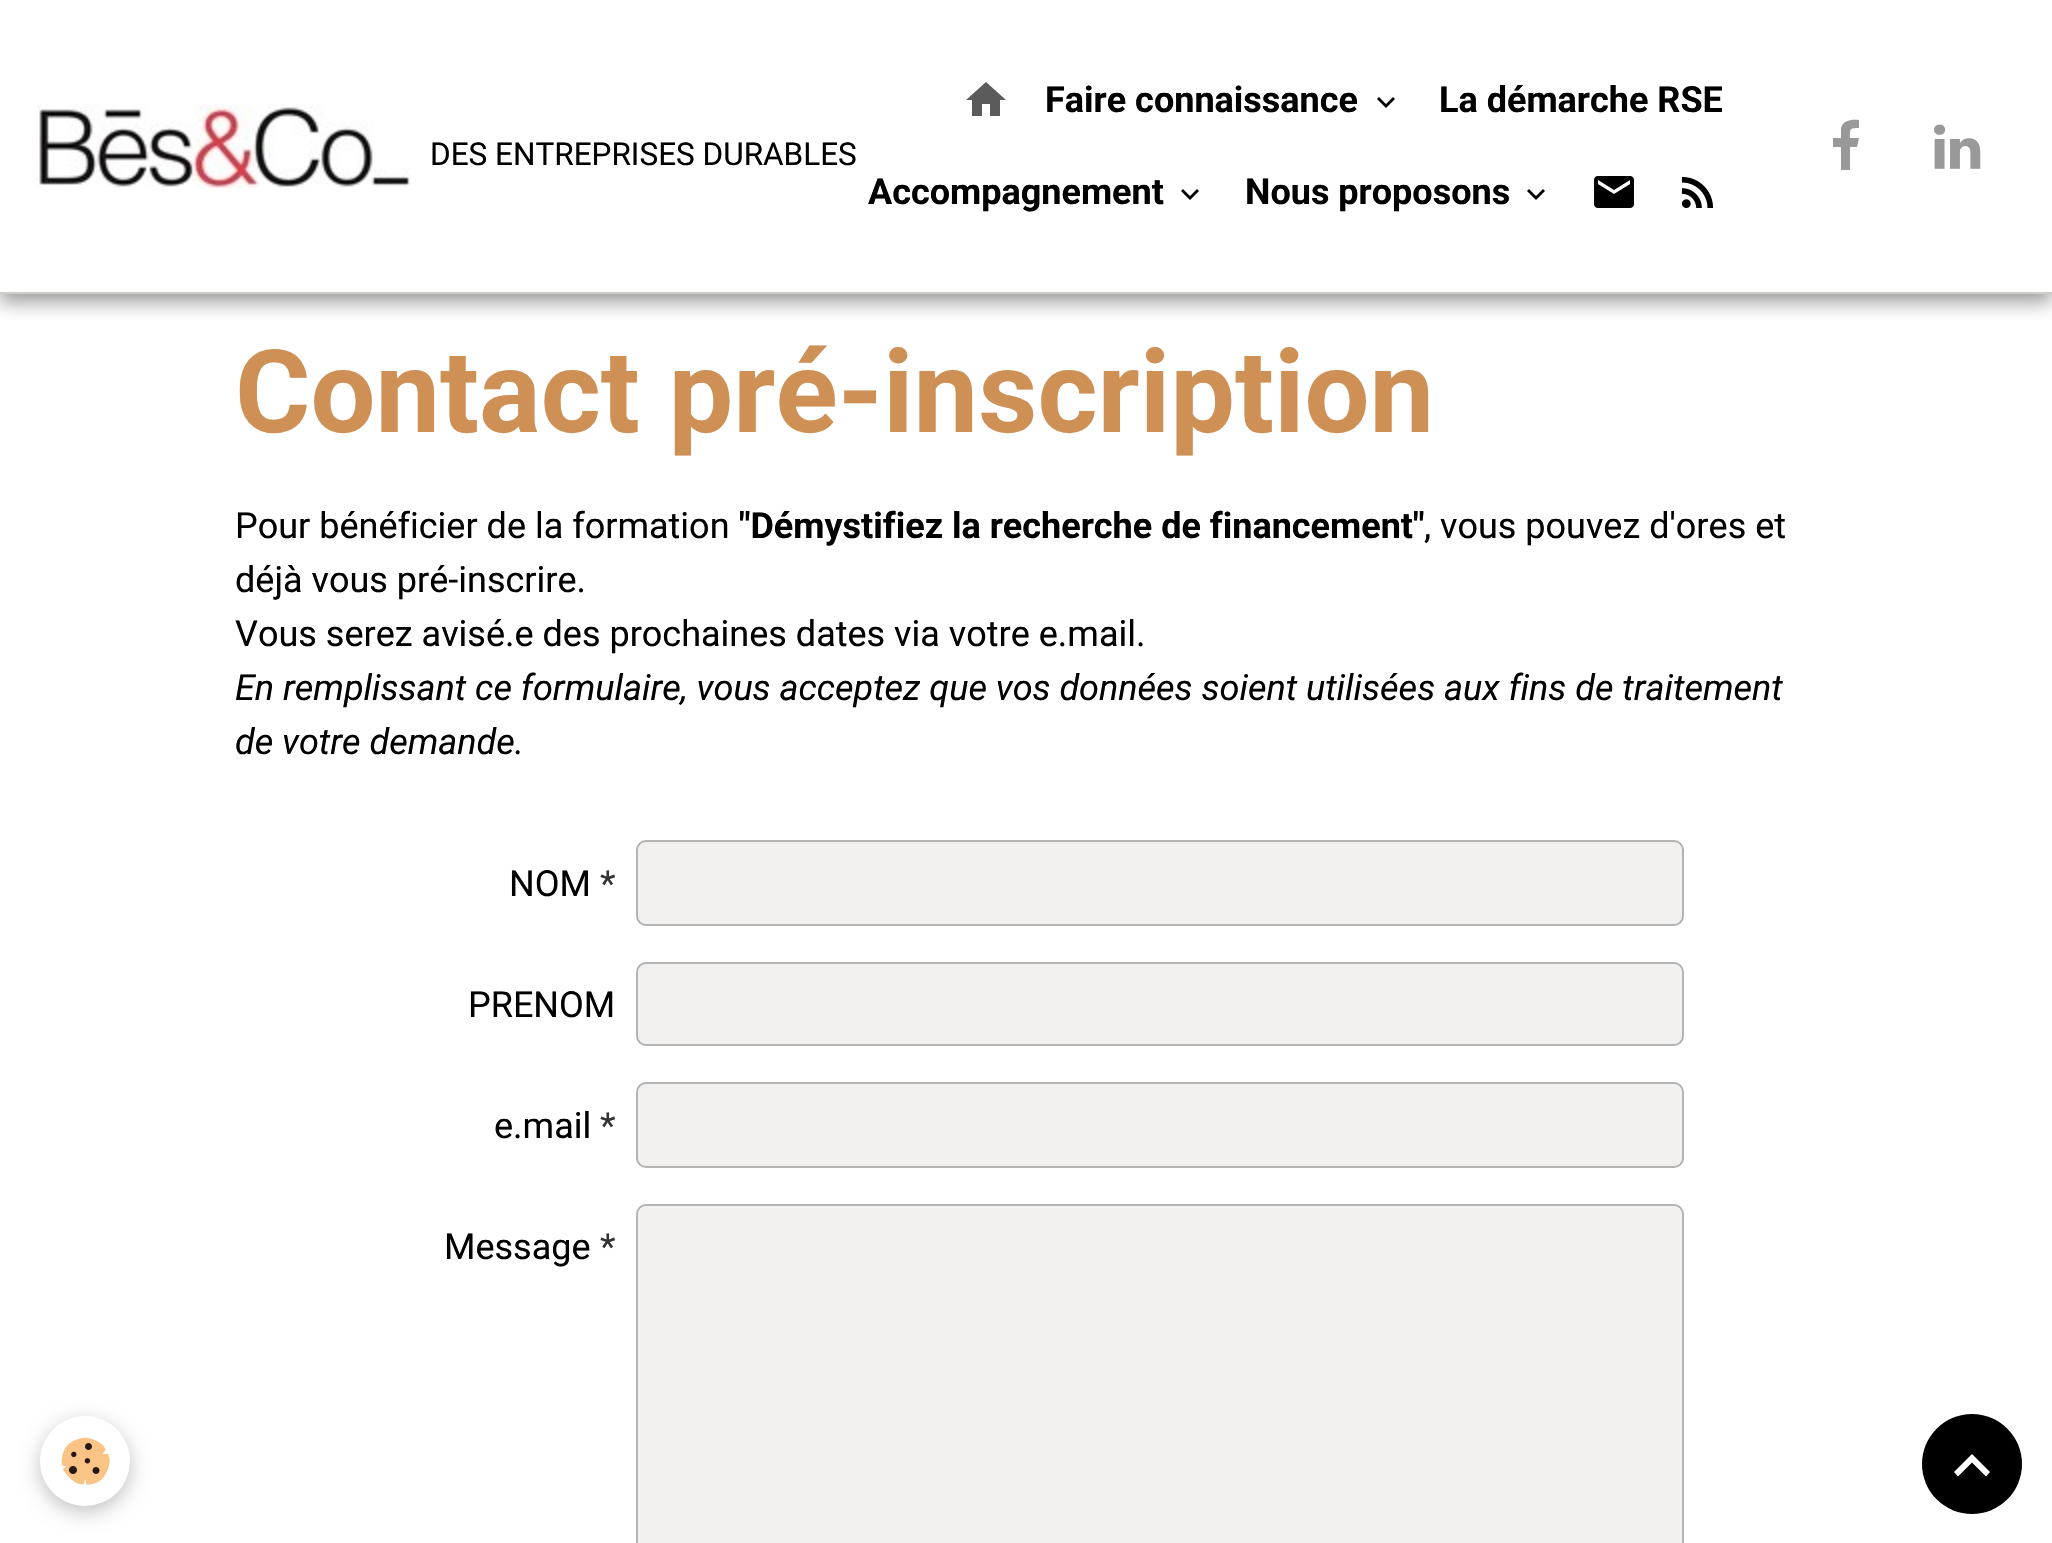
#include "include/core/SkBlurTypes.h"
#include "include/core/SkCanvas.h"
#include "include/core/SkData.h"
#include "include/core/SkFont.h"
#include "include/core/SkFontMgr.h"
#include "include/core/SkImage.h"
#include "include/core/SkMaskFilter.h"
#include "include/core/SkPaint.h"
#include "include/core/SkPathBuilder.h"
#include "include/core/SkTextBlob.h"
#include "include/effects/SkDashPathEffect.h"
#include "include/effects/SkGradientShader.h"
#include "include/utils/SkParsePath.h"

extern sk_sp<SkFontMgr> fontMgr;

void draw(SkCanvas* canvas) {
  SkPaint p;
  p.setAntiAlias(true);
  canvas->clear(SK_ColorWHITE);
  canvas->save();
  canvas->clipRect(SkRect::MakeLTRB(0, 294, 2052, 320));
  p.setColor(SkColorSetRGB(153, 153, 153));
  p.setMaskFilter(SkMaskFilter::MakeBlur(kNormal_SkBlurStyle, 9));
  canvas->drawRect(SkRect::MakeLTRB(0, 8, 2052, 302), p);
  p.setMaskFilter(nullptr);
  canvas->restore();
  p.setColor(SkColorSetRGB(207, 205, 201));
  canvas->drawRect(SkRect::MakeLTRB(0, 292, 2052, 294), p);
  canvas->drawImageRect(SkImages::DeferredFromEncodedData(SkData::MakeFromFileName("images/1.png")), SkRect::MakeLTRB(36, 104, 411, 188), SkSamplingOptions());
  p.setColor(SkColorSetRGB(91, 91, 91));
  canvas->drawPath(SkPathBuilder().moveTo(982, 116).lineTo(972, 116).lineTo(972, 100).lineTo(966, 100).lineTo(986, 82).lineTo(1006, 100).lineTo(1000, 100).lineTo(1000, 116).lineTo(990, 116).lineTo(990, 104).lineTo(982, 104).close().detach(), p);
  p.setColor(SK_ColorBLACK);
  canvas->drawPath(SkPathBuilder().moveTo(1393, 97).lineTo(1395, 99).lineTo(1386, 108).lineTo(1377, 99).lineTo(1379, 97).lineTo(1386, 104).close().detach(), p);
  canvas->drawPath(SkPathBuilder().moveTo(1197, 189).lineTo(1199, 191).lineTo(1190, 200).lineTo(1181, 191).lineTo(1183, 189).lineTo(1190, 196).close().detach(), p);
  canvas->drawPath(SkPathBuilder().moveTo(1543, 189).lineTo(1545, 191).lineTo(1536, 200).lineTo(1527, 191).lineTo(1529, 189).lineTo(1536, 196).close().detach(), p);
  canvas->drawImageRect(SkImages::DeferredFromEncodedData(SkData::MakeFromFileName("images/2.png")), SkRect::MakeLTRB(1594, 176, 1634, 208), SkSamplingOptions());
  canvas->drawImageRect(SkImages::DeferredFromEncodedData(SkData::MakeFromFileName("images/3.png")), SkRect::MakeLTRB(1681, 176, 1714, 208), SkSamplingOptions());
  p.setColor(SkColorSetRGB(153, 153, 153));
  canvas->drawPath(SkPathBuilder().moveTo(1859, 120).lineTo(1859, 128).cubicTo(1849, 128, 1850, 129, 1850, 138).lineTo(1859, 138).lineTo(1857, 147).lineTo(1850, 147).lineTo(1850, 170).lineTo(1841, 170).lineTo(1841, 147).lineTo(1833, 147).lineTo(1833, 138).lineTo(1841, 138).lineTo(1841, 128).cubicTo(1843, 120, 1852, 119, 1859, 120).close().detach(), p);
  canvas->drawImageRect(SkImages::DeferredFromEncodedData(SkData::MakeFromFileName("images/4.png")), SkRect::MakeLTRB(1934, 124, 1981, 169), SkSamplingOptions());
  p.setColor(SkColorSetRGB(242, 241, 239));
  canvas->drawRoundRect(SkRect::MakeLTRB(637, 841, 1683, 925), 9, 9, p);
  p.setStyle(SkPaint::kStroke_Style);
  p.setStrokeWidth(2);
  p.setColor(SkColorSetRGB(179, 179, 179));
  canvas->drawRoundRect(SkRect::MakeLTRB(637, 841, 1683, 925), 9, 9, p);
  p.setStyle(SkPaint::kFill_Style);
  p.setColor(SkColorSetRGB(242, 241, 239));
  canvas->drawRoundRect(SkRect::MakeLTRB(637, 963, 1683, 1045), 9, 9, p);
  p.setStyle(SkPaint::kStroke_Style);
  p.setColor(SkColorSetRGB(179, 179, 179));
  canvas->drawRoundRect(SkRect::MakeLTRB(637, 963, 1683, 1045), 9, 9, p);
  p.setStyle(SkPaint::kFill_Style);
  p.setColor(SkColorSetRGB(242, 241, 239));
  canvas->drawRoundRect(SkRect::MakeLTRB(637, 1083, 1683, 1167), 9, 9, p);
  p.setStyle(SkPaint::kStroke_Style);
  p.setColor(SkColorSetRGB(179, 179, 179));
  canvas->drawRoundRect(SkRect::MakeLTRB(637, 1083, 1683, 1167), 9, 9, p);
  p.setStyle(SkPaint::kFill_Style);
  p.setColor(SkColorSetRGB(242, 241, 239));
  canvas->drawRoundRect(SkRect::MakeLTRB(638, 1206, 1682, 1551), 8, 8, p);
  p.setStyle(SkPaint::kStroke_Style);
  p.setColor(SkColorSetRGB(179, 179, 179));
  canvas->drawRoundRect(SkRect::MakeLTRB(637, 1205, 1683, 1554), 9, 9, p);
  p.setStyle(SkPaint::kFill_Style);
  p.setColor(SkColorSetARGB(61, 0, 0, 0));
  p.setMaskFilter(SkMaskFilter::MakeBlur(kNormal_SkBlurStyle, 10));
  canvas->drawRoundRect(SkRect::MakeLTRB(40, 1422, 130, 1512), 45, 45, p);
  p.setMaskFilter(nullptr);
  p.setColor(SK_ColorWHITE);
  canvas->drawCircle(85, 1461, 45, p);
  canvas->drawImageRect(SkImages::DeferredFromEncodedData(SkData::MakeFromFileName("images/5.png")), SkRect::MakeLTRB(61, 1437, 110, 1485), SkSamplingOptions());
  p.setColor(SK_ColorBLACK);
  canvas->drawCircle(1972, 1464, 50, p);
  p.setColor(SK_ColorWHITE);
  canvas->drawPath(SkPathBuilder().moveTo(1972, 1454).lineTo(1990, 1472).lineTo(1986, 1476.5f).lineTo(1972, 1462.5f).lineTo(1958, 1476.5f).lineTo(1954, 1472).close().detach(), p);
  SkFont font1(fontMgr->matchFamilyStyle("Roboto", SkFontStyle::Normal()), 31.5f);
  font1.setSubpixel(true);
  p.setColor(SK_ColorBLACK);
  canvas->drawString("DES ENTREPRISES DURABLES", 430, 165, font1, p);
  SkFont font2(fontMgr->matchFamilyStyle("Roboto", SkFontStyle::Bold()), 36);
  font2.setSubpixel(true);
  canvas->drawString("Faire connaissance", 1045, 112, font2, p);
  canvas->drawString("La démarche RSE", 1439, 112, font2, p);
  canvas->drawString("Accompagnement", 868, 204, font2, p);
  canvas->drawString("Nous proposons", 1245, 204, font2, p);
  SkFont font3(fontMgr->matchFamilyStyle("Roboto", SkFontStyle::Bold()), 115.25f);
  font3.setSubpixel(true);
  p.setColor(SkColorSetRGB(206, 144, 85));
  canvas->drawString("Contact pré-inscription", 235, 432, font3, p);
  SkFont font4(fontMgr->matchFamilyStyle("Roboto", SkFontStyle::Normal()), 36);
  font4.setSubpixel(true);
  p.setColor(SK_ColorBLACK);
  canvas->drawString("Pour bénéficier de la formation", 235, 538, font4, p);
  canvas->drawString("\"Démystifiez la recherche de financement\"", 739, 538, font2, p);
  canvas->drawString(", vous pouvez d'ores et", 1424, 538, font4, p);
  canvas->drawString("déjà vous pré-inscrire.", 235, 592, font4, p);
  canvas->drawString("Vous serez avisé.e des prochaines dates via votre e.mail.", 235, 646, font4, p);
  SkFont font5(fontMgr->matchFamilyStyle("Roboto", SkFontStyle::Italic()), 36);
  font5.setSubpixel(true);
  canvas->drawString("En remplissant ce formulaire, vous acceptez que vos données soient utilisées aux fins de traitement", 235, 700, font5, p);
  canvas->drawString("de votre demande.", 235, 754, font5, p);
  canvas->drawString("NOM", 509, 896, font4, p);
  p.setColor(SkColorSetRGB(51, 51, 51));
  canvas->drawString("*", 600, 896, font4, p);
  p.setColor(SK_ColorBLACK);
  canvas->drawString("PRENOM", 468, 1017, font4, p);
  canvas->drawString("e.mail", 494, 1138, font4, p);
  p.setColor(SkColorSetRGB(51, 51, 51));
  canvas->drawString("*", 600, 1138, font4, p);
  p.setColor(SK_ColorBLACK);
  canvas->drawString("Message", 444, 1259, font4, p);
  p.setColor(SkColorSetRGB(51, 51, 51));
  canvas->drawString("*", 600, 1259, font4, p);
}
